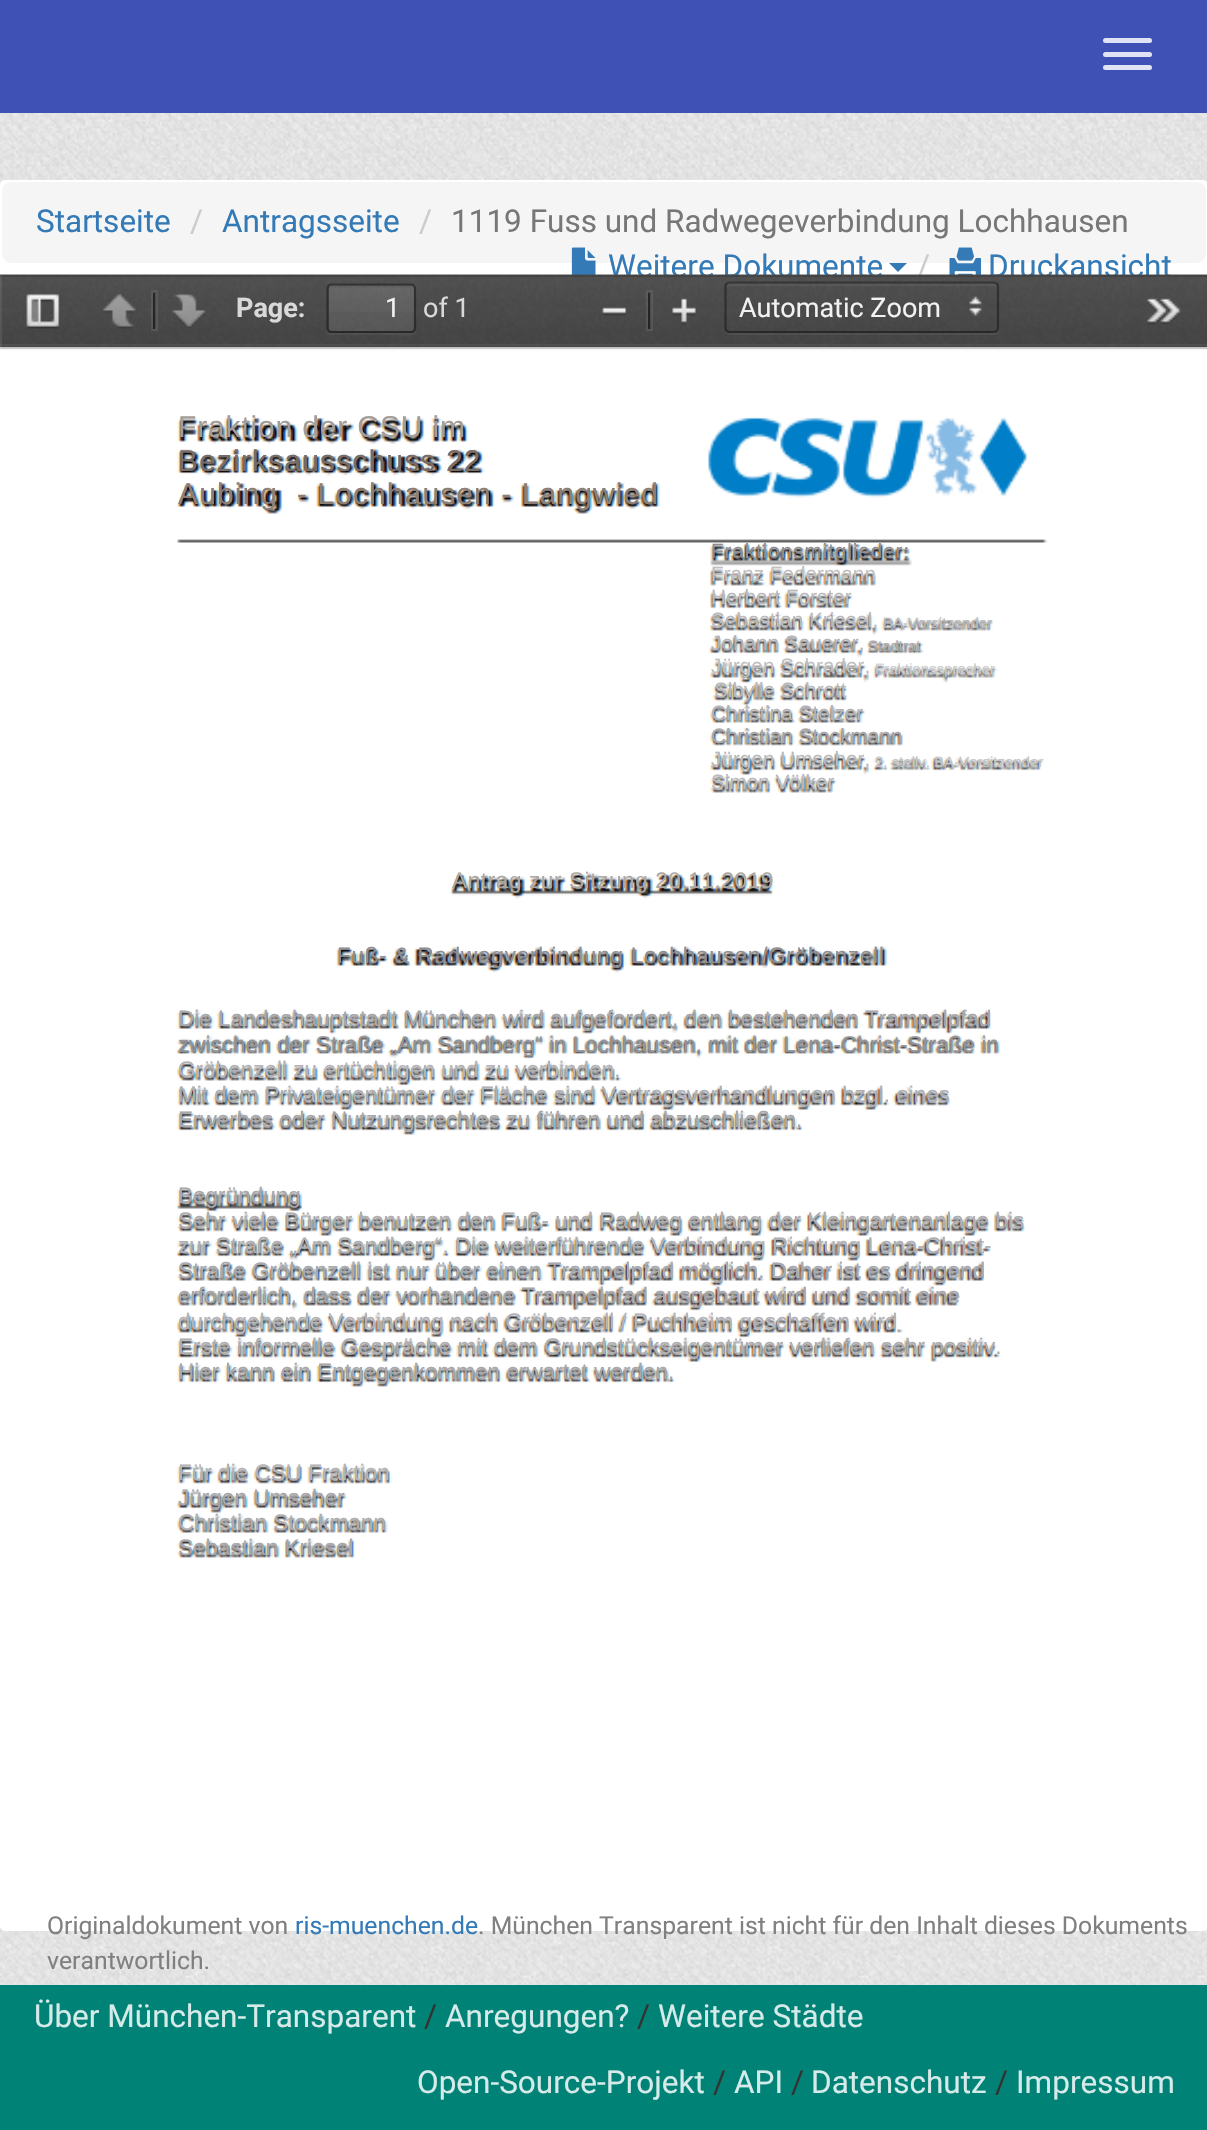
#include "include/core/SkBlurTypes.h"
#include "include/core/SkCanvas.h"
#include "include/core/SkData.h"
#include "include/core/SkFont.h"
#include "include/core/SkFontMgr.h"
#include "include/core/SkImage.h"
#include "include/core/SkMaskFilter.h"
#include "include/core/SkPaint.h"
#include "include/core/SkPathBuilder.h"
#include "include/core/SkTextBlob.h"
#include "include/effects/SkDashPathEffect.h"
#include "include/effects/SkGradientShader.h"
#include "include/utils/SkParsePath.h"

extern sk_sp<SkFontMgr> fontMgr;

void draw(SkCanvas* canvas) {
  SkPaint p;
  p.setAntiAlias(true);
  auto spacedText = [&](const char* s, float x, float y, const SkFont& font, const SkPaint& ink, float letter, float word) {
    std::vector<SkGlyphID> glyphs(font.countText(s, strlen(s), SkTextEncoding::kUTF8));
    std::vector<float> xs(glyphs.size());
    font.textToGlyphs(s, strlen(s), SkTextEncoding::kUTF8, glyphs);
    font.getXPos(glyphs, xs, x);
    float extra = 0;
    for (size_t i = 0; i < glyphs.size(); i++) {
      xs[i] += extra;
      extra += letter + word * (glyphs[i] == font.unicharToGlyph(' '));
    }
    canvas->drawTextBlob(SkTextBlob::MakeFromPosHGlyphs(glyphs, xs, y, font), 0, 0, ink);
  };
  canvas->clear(SK_ColorWHITE);
  canvas->drawImageRect(SkImages::DeferredFromEncodedData(SkData::MakeFromFileName("images/1.png")), SkRect::MakeLTRB(0, 113, 1207, 1985), SkSamplingOptions());
  p.setColor(SkColorSetRGB(63, 81, 181));
  canvas->drawRect(SkRect::MakeLTRB(0, 0, 1207, 113), p);
  p.setColor(SkColorSetRGB(224, 227, 243));
  canvas->drawRoundRect(SkRect::MakeLTRB(1103, 38, 1152, 43), 2.5f, 2.5f, p);
  canvas->drawRoundRect(SkRect::MakeLTRB(1103, 52, 1152, 57), 2.5f, 2.5f, p);
  canvas->drawRoundRect(SkRect::MakeLTRB(1103, 65, 1152, 70), 2.5f, 2.5f, p);
  p.setColor(SK_ColorWHITE);
  canvas->drawRoundRect(SkRect::MakeLTRB(0, 180, 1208, 1931), 5, 5, p);
  p.setColor(SkColorSetRGB(245, 245, 245));
  canvas->drawRoundRect(SkRect::MakeLTRB(2, 182, 1206, 263), 9, 9, p);
  canvas->drawImageRect(SkImages::DeferredFromEncodedData(SkData::MakeFromFileName("images/2.png")), SkRect::MakeLTRB(571, 247, 596, 275), SkSamplingOptions());
  p.setColor(SkColorSetRGB(51, 122, 183));
  canvas->drawPath(SkPathBuilder().moveTo(889, 263).lineTo(907, 263).lineTo(898, 272).close().detach(), p);
  canvas->drawImageRect(SkImages::DeferredFromEncodedData(SkData::MakeFromFileName("images/3.png")), SkRect::MakeLTRB(949, 247, 981, 275), SkSamplingOptions());
  p.setColor(SkColorSetARGB(26, 0, 0, 0));
  p.setMaskFilter(SkMaskFilter::MakeBlur(kNormal_SkBlurStyle, 1));
  canvas->drawRect(SkRect::MakeLTRB(0, 277, 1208, 349), p);
  p.setMaskFilter(nullptr);
  p.setColor(SkColorSetARGB(38, 0, 0, 0));
  canvas->drawRect(SkRect::MakeLTRB(0, 347, 1207, 349), p);
  canvas->drawImageRect(SkImages::DeferredFromEncodedData(SkData::MakeFromFileName("images/12.png")), SkRect::MakeLTRB(176, 417, 1047, 1558), SkSamplingOptions());
  p.setColor(SkColorSetRGB(0, 130, 118));
  canvas->drawRect(SkRect::MakeLTRB(0, 1985, 1207, 2130), p);
  SkFont font1(fontMgr->matchFamilyStyle("Roboto", SkFontStyle::Normal()), 31.5f);
  font1.setSubpixel(true);
  p.setColor(SkColorSetRGB(51, 122, 183));
  canvas->drawString("Startseite", 36, 232, font1, p);
  p.setColor(SkColorSetRGB(204, 204, 204));
  canvas->drawString("/", 190, 232, font1, p);
  p.setColor(SkColorSetRGB(51, 122, 183));
  canvas->drawString("Antragsseite", 222, 232, font1, p);
  p.setColor(SkColorSetRGB(204, 204, 204));
  canvas->drawString("/", 419, 232, font1, p);
  p.setColor(SkColorSetRGB(119, 119, 119));
  canvas->drawString("1119 Fuss und Radwegeverbindung Lochhausen", 451, 232, font1, p);
  p.setColor(SkColorSetRGB(51, 122, 183));
  canvas->drawString("Weitere Dokumente", 608, 277, font1, p);
  p.setColor(SkColorSetRGB(204, 204, 204));
  canvas->drawString("/", 917, 277, font1, p);
  p.setColor(SkColorSetRGB(51, 122, 183));
  canvas->drawString("Druckansicht", 988, 277, font1, p);
  p.setColor(SkColorSetRGB(71, 71, 71));
  canvas->drawRect(SkRect::MakeLTRB(0, 275, 1207, 347), p);
  canvas->drawImageRect(SkImages::DeferredFromEncodedData(SkData::MakeFromFileName("images/4.png")), SkRect::MakeLTRB(0, 274, 1207, 346), SkSamplingOptions());
  p.setColor(SkColorSetARGB(13, 255, 255, 255));
  canvas->drawRect(SkRect::MakeLTRB(0, 344, 1207, 346), p);
  p.setColor(SkColorSetARGB(38, 0, 0, 0));
  canvas->drawRect(SkRect::MakeLTRB(0, 275, 1207, 277), p);
  p.setColor(SkColorSetARGB(20, 255, 255, 255));
  canvas->drawRect(SkRect::MakeLTRB(0, 275, 2, 347), p);
  canvas->drawImageRect(SkImages::DeferredFromEncodedData(SkData::MakeFromFileName("images/5.png")), SkRect::MakeLTRB(26, 294, 60, 329), SkSamplingOptions());
  canvas->drawImageRect(SkImages::DeferredFromEncodedData(SkData::MakeFromFileName("images/6.png")), SkRect::MakeLTRB(103, 294, 136, 329), SkSamplingOptions());
  p.setStyle(SkPaint::kStroke_Style);
  p.setStrokeWidth(2);
  canvas->drawRect(SkRect::MakeLTRB(152, 291, 157, 330), p);
  p.setStyle(SkPaint::kFill_Style);
  p.setColor(SkColorSetARGB(128, 0, 0, 0));
  canvas->drawRect(SkRect::MakeLTRB(153, 293, 155, 329), p);
  canvas->drawImageRect(SkImages::DeferredFromEncodedData(SkData::MakeFromFileName("images/7.png")), SkRect::MakeLTRB(172, 294, 206, 328), SkSamplingOptions());
  SkFont font2(fontMgr->matchFamilyStyle("Roboto", SkFontStyle::Bold()), 27);
  font2.setSubpixel(true);
  p.setColor(SkColorSetRGB(217, 217, 217));
  canvas->drawString("Page:", 236, 317, font2, p);
  p.setColor(SkColorSetARGB(13, 255, 255, 255));
  canvas->drawPath(SkPathBuilder().moveTo(326, 289).lineTo(326, 331).lineTo(327, 334).lineTo(330, 335).lineTo(398, 335).cubicTo(399, 335, 412, 337, 415, 333).lineTo(416, 330).cubicTo(415, 332, 414, 333, 412, 333).lineTo(331, 333).cubicTo(328, 333, 326, 331, 326, 328).close().detach(), p);
  p.setColor(SkColorSetARGB(23, 255, 255, 255));
  canvas->drawRoundRect(SkRect::MakeLTRB(329, 286, 414, 331), 2, 2, p);
  {
    const SkColor colors[] = {SkColorSetARGB(13, 255, 255, 255), SkColorSetARGB(0, 255, 255, 255)};
    const float stops[] = {0, 1};
    const SkPoint ends[] = {{371, 286}, {371, 331}};
    p.setShader(SkGradientShader::MakeLinear(ends, colors, stops, 2, SkTileMode::kClamp));
    p.setAlpha(255);
  }
  canvas->drawRect(SkRect::MakeLTRB(329, 286, 414, 312), p);
  p.setShader(nullptr);
  p.setColor(SkColorSetARGB(13, 0, 0, 0));
  canvas->drawPath(SkPathBuilder().moveTo(331, 288).lineTo(412, 288).cubicTo(413, 288, 414, 289, 414, 290).lineTo(414, 288).cubicTo(414, 287, 413, 286, 412, 286).lineTo(331, 286).cubicTo(330, 286, 329, 287, 329, 288).lineTo(329, 289).close().detach(), p);
  p.setStyle(SkPaint::kStroke_Style);
  p.setStrokeWidth(2.2f);
  p.setColor(SkColorSetARGB(82, 0, 0, 0));
  canvas->drawPath(SkPathBuilder().moveTo(328.5f, 285.5f).lineTo(330.5f, 284.5f).lineTo(412, 284.5f).lineTo(414, 285.5f).detach(), p);
  p.setColor(SkColorSetARGB(97, 0, 0, 0));
  canvas->drawPath(SkPathBuilder().moveTo(414, 285.5f).lineTo(415, 288).lineTo(415, 328.5f).lineTo(414, 331).detach(), p);
  p.setColor(SkColorSetARGB(107, 0, 0, 0));
  canvas->drawPath(SkPathBuilder().moveTo(414, 331).lineTo(412, 332).lineTo(330.5f, 332).lineTo(328.5f, 331).detach(), p);
  p.setColor(SkColorSetARGB(97, 0, 0, 0));
  canvas->drawPath(SkPathBuilder().moveTo(328.5f, 331).lineTo(327.5f, 328.5f).lineTo(327.5f, 288).lineTo(328.5f, 285.5f).detach(), p);
  SkFont font3(fontMgr->matchFamilyStyle("Roboto", SkFontStyle::Normal()), 27);
  font3.setSubpixel(true);
  p.setStyle(SkPaint::kFill_Style);
  p.setColor(SkColorSetRGB(242, 242, 242));
  canvas->drawString("1", 385, 317, font3, p);
  p.setColor(SkColorSetRGB(217, 217, 217));
  canvas->drawString("of 1", 423, 317, font3, p);
  canvas->drawImageRect(SkImages::DeferredFromEncodedData(SkData::MakeFromFileName("images/8.png")), SkRect::MakeLTRB(602, 307, 627, 316), SkSamplingOptions());
  p.setStyle(SkPaint::kStroke_Style);
  p.setStrokeWidth(2);
  p.setColor(SkColorSetARGB(20, 255, 255, 255));
  canvas->drawRect(SkRect::MakeLTRB(647, 291, 652, 330), p);
  p.setStyle(SkPaint::kFill_Style);
  p.setColor(SkColorSetARGB(128, 0, 0, 0));
  canvas->drawRect(SkRect::MakeLTRB(648, 293, 650, 329), p);
  canvas->drawImageRect(SkImages::DeferredFromEncodedData(SkData::MakeFromFileName("images/9.png")), SkRect::MakeLTRB(672, 298, 696, 325), SkSamplingOptions());
  p.setColor(SkColorSetARGB(13, 255, 255, 255));
  canvas->drawPath(SkPathBuilder().moveTo(725, 331).cubicTo(725, 333, 727, 335, 730, 335).lineTo(994, 335).cubicTo(997, 335, 999, 333, 999, 330).lineTo(999, 328).cubicTo(999, 331, 997, 333, 994, 333).lineTo(729, 333).cubicTo(727, 333, 726, 332, 725, 331).close().detach(), p);
  canvas->drawImageRect(SkImages::DeferredFromEncodedData(SkData::MakeFromFileName("images/10.png")), SkRect::MakeLTRB(969, 296, 982, 316), SkSamplingOptions());
  canvas->drawPath(SkPathBuilder().moveTo(729, 286).lineTo(994, 286).cubicTo(996, 286, 997, 287, 997, 288).lineTo(997, 286).cubicTo(997, 285, 996, 284, 995, 284).lineTo(729, 284).cubicTo(728, 284, 727, 285, 727, 286).lineTo(727, 288).cubicTo(727, 287, 728, 286, 729, 286).close().detach(), p);
  p.setStyle(SkPaint::kStroke_Style);
  p.setStrokeWidth(2.2f);
  p.setColor(SkColorSetARGB(82, 0, 0, 0));
  canvas->drawPath(SkPathBuilder().moveTo(726.5f, 283.5f).lineTo(729, 282.5f).lineTo(994.5f, 282.5f).lineTo(997, 283.5f).detach(), p);
  p.setColor(SkColorSetARGB(97, 0, 0, 0));
  canvas->drawPath(SkPathBuilder().moveTo(997, 283.5f).lineTo(998, 286).lineTo(998, 328.5f).lineTo(997, 331).detach(), p);
  p.setColor(SkColorSetARGB(107, 0, 0, 0));
  canvas->drawPath(SkPathBuilder().moveTo(997, 331).lineTo(994.5f, 332).lineTo(729, 332).lineTo(726.5f, 331).detach(), p);
  p.setColor(SkColorSetARGB(97, 0, 0, 0));
  canvas->drawPath(SkPathBuilder().moveTo(726.5f, 331).lineTo(725.5f, 328.5f).lineTo(725.5f, 286).lineTo(726.5f, 283.5f).detach(), p);
  p.setStyle(SkPaint::kFill_Style);
  p.setColor(SkColorSetRGB(242, 242, 242));
  canvas->drawString("Automatic Zoom", 739, 317, font3, p);
  canvas->drawImageRect(SkImages::DeferredFromEncodedData(SkData::MakeFromFileName("images/11.png")), SkRect::MakeLTRB(1147, 298, 1181, 325), SkSamplingOptions());
  SkFont font4(fontMgr->matchFamilyStyle("Liberation Sans", SkFontStyle::Normal()), 30.1f);
  font4.setSubpixel(true);
  p.setColor(SkColorSetRGB(163, 157, 153));
  spacedText("Fraktion der CSU im", 178, 437, font4, p, 0.8f, 0);
  p.setColor(SkColorSetRGB(119, 108, 103));
  spacedText("Bezirksausschuss 22", 178, 471, font4, p, 1.1f, 0);
  p.setColor(SkColorSetRGB(142, 127, 116));
  spacedText("Aubing  - Lochhausen - Langwied", 178, 504, font4, p, 1.05f, 0);
  SkFont font5(fontMgr->matchFamilyStyle("Liberation Sans", SkFontStyle::Normal()), 20.75f);
  font5.setSubpixel(true);
  p.setColor(SkColorSetRGB(142, 142, 147));
  spacedText("Fraktionsmitglieder:", 711, 558, font5, p, 0.9f, 0);
  p.setColor(SkColorSetRGB(194, 191, 192));
  canvas->drawString("Franz Federmann", 711, 581, font5, p);
  p.setColor(SkColorSetRGB(186, 186, 188));
  canvas->drawString("Herbert Forster", 711, 604, font5, p);
  canvas->drawString("Sebastian Kriesel,", 711, 627, font5, p);
  SkFont font6(fontMgr->matchFamilyStyle("Liberation Sans", SkFontStyle::Normal()), 15);
  font6.setSubpixel(true);
  canvas->drawString("BA-Vorsitzender", 883, 628, font6, p);
  p.setColor(SkColorSetRGB(180, 180, 184));
  canvas->drawString("Johann Sauerer,", 711, 650, font5, p);
  p.setColor(SkColorSetRGB(175, 173, 175));
  canvas->drawString("Stadtrat", 868, 651, font6, p);
  p.setColor(SkColorSetRGB(194, 191, 192));
  canvas->drawString("Jürgen Schrader,", 711, 673, font5, p);
  p.setColor(SkColorSetRGB(204, 204, 204));
  canvas->drawString("Fraktionssprecher", 875, 674, font6, p);
  p.setColor(SkColorSetRGB(186, 186, 188));
  canvas->drawString("Sibylle Schrott", 714, 697, font5, p);
  p.setColor(SkColorSetRGB(180, 180, 184));
  canvas->drawString("Christina Stelzer", 711, 720, font5, p);
  p.setColor(SkColorSetRGB(167, 167, 172));
  canvas->drawString("Christian Stockmann", 711, 743, font5, p);
  p.setColor(SkColorSetRGB(186, 186, 188));
  canvas->drawString("Jürgen Umseher,", 711, 766, font5, p);
  p.setColor(SkColorSetRGB(197, 198, 199));
  canvas->drawString("2. stellv. BA-Vorsitzender", 875, 767, font6, p);
  p.setColor(SkColorSetRGB(186, 186, 188));
  canvas->drawString("Simon Völker", 711, 789, font5, p);
  SkFont font7(fontMgr->matchFamilyStyle("Liberation Sans", SkFontStyle::Normal()), 22.55f);
  font7.setSubpixel(true);
  p.setColor(SkColorSetRGB(172, 168, 163));
  spacedText("Antrag zur Sitzung 20.11.2019", 452, 888, font7, p, 0.6f, 0);
  p.setColor(SkColorSetRGB(142, 142, 147));
  spacedText("Fuß- & Radwegverbindung Lochhausen/Gröbenzell", 337, 963, font7, p, 0.75f, 0);
  p.setColor(SkColorSetRGB(167, 167, 172));
  canvas->drawString("Die Landeshauptstadt München wird aufgefordert, den bestehenden Trampelpfad", 178, 1026, font7, p);
  p.setColor(SkColorSetRGB(147, 147, 154));
  canvas->drawString("zwischen der Straße „Am Sandberg“ in Lochhausen, mit der Lena-Christ-Straße in", 178, 1052, font7, p);
  p.setColor(SkColorSetRGB(180, 180, 184));
  canvas->drawString("Gröbenzell zu ertüchtigen und zu verbinden.", 178, 1077, font7, p);
  p.setColor(SkColorSetRGB(173, 176, 181));
  canvas->drawString("Mit dem Privateigentümer der Fläche sind Vertragsverhandlungen bzgl. eines", 178, 1102, font7, p);
  p.setColor(SkColorSetRGB(167, 167, 172));
  canvas->drawString("Erwerbes oder Nutzungsrechtes zu führen und abzuschließen.", 178, 1127, font7, p);
  canvas->drawString("Begründung", 178, 1203, font7, p);
  p.setColor(SkColorSetRGB(175, 173, 175));
  canvas->drawString("Sehr viele Bürger benutzen den Fuß- und Radweg entlang der Kleingartenanlage bis", 178, 1228, font7, p);
  p.setColor(SkColorSetRGB(173, 176, 181));
  canvas->drawString("zur Straße „Am Sandberg“. Die weiterführende Verbindung Richtung Lena-Christ-", 178, 1253, font7, p);
  p.setColor(SkColorSetRGB(166, 170, 179));
  canvas->drawString("Straße Gröbenzell ist nur über einen Trampelpfad möglich. Daher ist es dringend", 178, 1278, font7, p);
  p.setColor(SkColorSetRGB(167, 167, 172));
  canvas->drawString("erforderlich, dass der vorhandene Trampelpfad ausgebaut wird und somit eine", 178, 1303, font7, p);
  p.setColor(SkColorSetRGB(180, 180, 184));
  canvas->drawString("durchgehende Verbindung nach Gröbenzell / Puchheim geschaffen wird", 178, 1329, font7, p);
  p.setColor(SkColorSetRGB(175, 173, 175));
  canvas->drawString("Erste informelle Gespräche mit dem Grundstückseigentümer verliefen sehr positiv.", 178, 1354, font7, p);
  p.setColor(SkColorSetRGB(167, 167, 172));
  canvas->drawString("Hier kann ein Entgegenkommen erwartet werden.", 178, 1379, font7, p);
  p.setColor(SkColorSetRGB(180, 180, 184));
  canvas->drawString("Für die CSU Fraktion", 178, 1480, font7, p);
  p.setColor(SkColorSetRGB(167, 167, 172));
  canvas->drawString("Jürgen Umseher", 178, 1505, font7, p);
  p.setColor(SkColorSetRGB(175, 173, 175));
  canvas->drawString("Christian Stockmann", 178, 1530, font7, p);
  p.setColor(SkColorSetRGB(167, 167, 172));
  canvas->drawString("Sebastian Kriesel", 178, 1555, font7, p);
  SkFont font8(fontMgr->matchFamilyStyle("Roboto", SkFontStyle::Normal()), 24.75f);
  font8.setSubpixel(true);
  p.setColor(SkColorSetRGB(128, 128, 128));
  canvas->drawString("Originaldokument von", 47, 1934, font8, p);
  p.setColor(SkColorSetRGB(51, 122, 183));
  canvas->drawString("ris-muenchen.de", 295, 1934, font8, p);
  p.setColor(SkColorSetRGB(128, 128, 128));
  canvas->drawString(". München Transparent ist nicht für den Inhalt dieses Dokuments", 478, 1934, font8, p);
  canvas->drawString("verantwortlich.", 47, 1969, font8, p);
  p.setColor(SkColorSetRGB(214, 235, 233));
  canvas->drawString("Über München-Transparent", 34, 2027, font1, p);
  p.setColor(SkColorSetRGB(51, 51, 51));
  canvas->drawString("/", 424, 2027, font1, p);
  p.setColor(SkColorSetRGB(214, 235, 233));
  canvas->drawString("Anregungen?", 445, 2027, font1, p);
  p.setColor(SkColorSetRGB(51, 51, 51));
  canvas->drawString("/", 637, 2027, font1, p);
  p.setColor(SkColorSetRGB(214, 235, 233));
  canvas->drawString("Weitere Städte", 658, 2027, font1, p);
  canvas->drawString("Open-Source-Projekt", 417, 2093, font1, p);
  p.setColor(SkColorSetRGB(51, 51, 51));
  canvas->drawString("/", 713, 2093, font1, p);
  p.setColor(SkColorSetRGB(214, 235, 233));
  canvas->drawString("API", 734, 2093, font1, p);
  p.setColor(SkColorSetRGB(51, 51, 51));
  canvas->drawString("/", 791, 2093, font1, p);
  p.setColor(SkColorSetRGB(214, 235, 233));
  canvas->drawString("Datenschutz", 811, 2093, font1, p);
  p.setColor(SkColorSetRGB(51, 51, 51));
  canvas->drawString("/", 995, 2093, font1, p);
  p.setColor(SkColorSetRGB(214, 235, 233));
  canvas->drawString("Impressum", 1016, 2093, font1, p);
}
